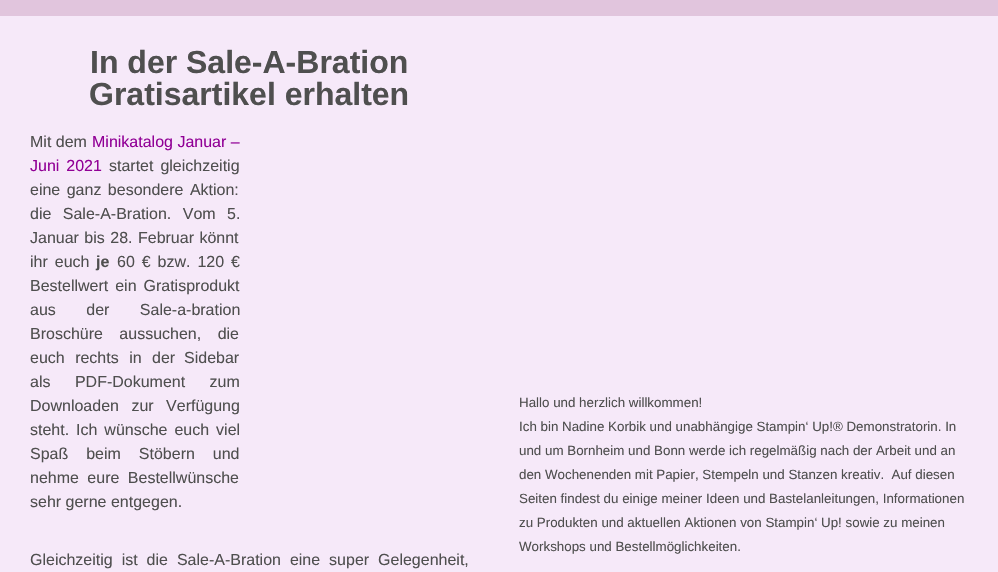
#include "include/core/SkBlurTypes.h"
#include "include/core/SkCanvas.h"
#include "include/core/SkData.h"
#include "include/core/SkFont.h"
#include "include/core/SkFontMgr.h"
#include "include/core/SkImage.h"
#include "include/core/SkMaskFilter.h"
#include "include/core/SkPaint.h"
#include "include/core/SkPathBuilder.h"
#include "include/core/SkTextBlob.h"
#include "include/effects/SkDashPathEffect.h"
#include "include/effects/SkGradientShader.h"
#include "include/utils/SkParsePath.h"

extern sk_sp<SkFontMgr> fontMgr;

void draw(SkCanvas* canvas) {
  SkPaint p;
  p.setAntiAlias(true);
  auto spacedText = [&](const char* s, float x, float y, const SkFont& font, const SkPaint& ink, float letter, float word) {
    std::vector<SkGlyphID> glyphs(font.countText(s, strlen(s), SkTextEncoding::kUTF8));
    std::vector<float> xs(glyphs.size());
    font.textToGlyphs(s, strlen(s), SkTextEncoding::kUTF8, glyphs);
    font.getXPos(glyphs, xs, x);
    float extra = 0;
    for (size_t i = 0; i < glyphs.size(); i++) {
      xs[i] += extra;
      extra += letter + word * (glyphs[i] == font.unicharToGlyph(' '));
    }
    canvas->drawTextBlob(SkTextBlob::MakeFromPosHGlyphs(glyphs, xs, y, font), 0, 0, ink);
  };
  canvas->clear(SkColorSetRGB(246, 233, 249));
  p.setColor(SkColorSetRGB(225, 197, 221));
  canvas->drawRect(SkRect::MakeLTRB(0, 0, 998, 16), p);
  SkFont font1(fontMgr->matchFamilyStyle("Liberation Sans", SkFontStyle::Bold()), 32);
  font1.setSubpixel(true);
  p.setColor(SkColorSetRGB(79, 79, 79));
  canvas->drawString("In der Sale-A-Bration", 90, 73, font1, p);
  canvas->drawString("Gratisartikel erhalten", 89, 105, font1, p);
  SkFont font2(fontMgr->matchFamilyStyle("Liberation Sans", SkFontStyle::Normal()), 16);
  font2.setSubpixel(true);
  canvas->drawString("Mit dem", 30, 147, font2, p);
  p.setColor(SkColorSetRGB(145, 0, 150));
  canvas->drawString("Minikatalog Januar –", 92, 147, font2, p);
  spacedText("Juni 2021", 30, 171, font2, p, 0, 2.5f);
  p.setColor(SkColorSetRGB(79, 79, 79));
  spacedText("startet gleichzeitig", 109, 171, font2, p, 0, 2.5f);
  spacedText("eine ganz besondere Aktion:", 30, 195, font2, p, 0, 2);
  spacedText("die Sale-A-Bration. Vom 5.", 30, 219, font2, p, 0, 7);
  spacedText("Januar bis 28. Februar könnt", 30, 243, font2, p, 0, 1);
  spacedText("ihr euch", 30, 267, font2, p, 0, 2.5f);
  SkFont font3(fontMgr->matchFamilyStyle("Liberation Sans", SkFontStyle::Bold()), 16);
  font3.setSubpixel(true);
  canvas->drawString("je", 96, 267, font3, p);
  spacedText("60 € bzw. 120 €", 117, 267, font2, p, 0, 2.5f);
  spacedText("Bestellwert ein Gratisprodukt", 30, 291, font2, p, 0, 2.5f);
  spacedText("aus der Sale-a-bration", 30, 315, font2, p, 0, 26);
  spacedText("Broschüre aussuchen, die", 30, 339, font2, p, 0, 12);
  spacedText("euch rechts in der", 30, 363, font2, p, 0, 6);
  canvas->drawString("Sidebar", 184, 363, font2, p);
  spacedText("als PDF-Dokument zum", 30, 387, font2, p, 0, 20);
  spacedText("Downloaden zur Verfügung", 30, 411, font2, p, 0, 8);
  spacedText("steht. Ich wünsche euch viel", 30, 435, font2, p, 0, 2.5f);
  spacedText("Spaß beim Stöbern und", 30, 459, font2, p, 0, 13.5f);
  spacedText("nehme eure Bestellwünsche", 30, 483, font2, p, 0, 4);
  canvas->drawString("sehr gerne entgegen.", 30, 507, font2, p);
  spacedText("Gleichzeitig ist die Sale-A-Bration eine super Gelegenheit,", 30, 565, font2, p, 0, 4.5f);
  SkFont font4(fontMgr->matchFamilyStyle("Liberation Sans", SkFontStyle::Normal()), 13.35f);
  font4.setSubpixel(true);
  canvas->drawString("Hallo und herzlich willkommen!", 519, 407, font4, p);
  canvas->drawString("Ich bin Nadine Korbik und unabhängige Stampin‘ Up!® Demonstratorin. In", 519, 431, font4, p);
  canvas->drawString("und um Bornheim und Bonn werde ich regelmäßig nach der Arbeit und an", 519, 455, font4, p);
  canvas->drawString("den Wochenenden mit Papier, Stempeln und Stanzen kreativ.  Auf diesen", 519, 479, font4, p);
  canvas->drawString("Seiten findest du einige meiner Ideen und Bastelanleitungen, Informationen", 519, 503, font4, p);
  canvas->drawString("zu Produkten und aktuellen Aktionen von Stampin‘ Up! sowie zu meinen", 519, 527, font4, p);
  canvas->drawString("Workshops und Bestellmöglichkeiten.", 519, 551, font4, p);
}
